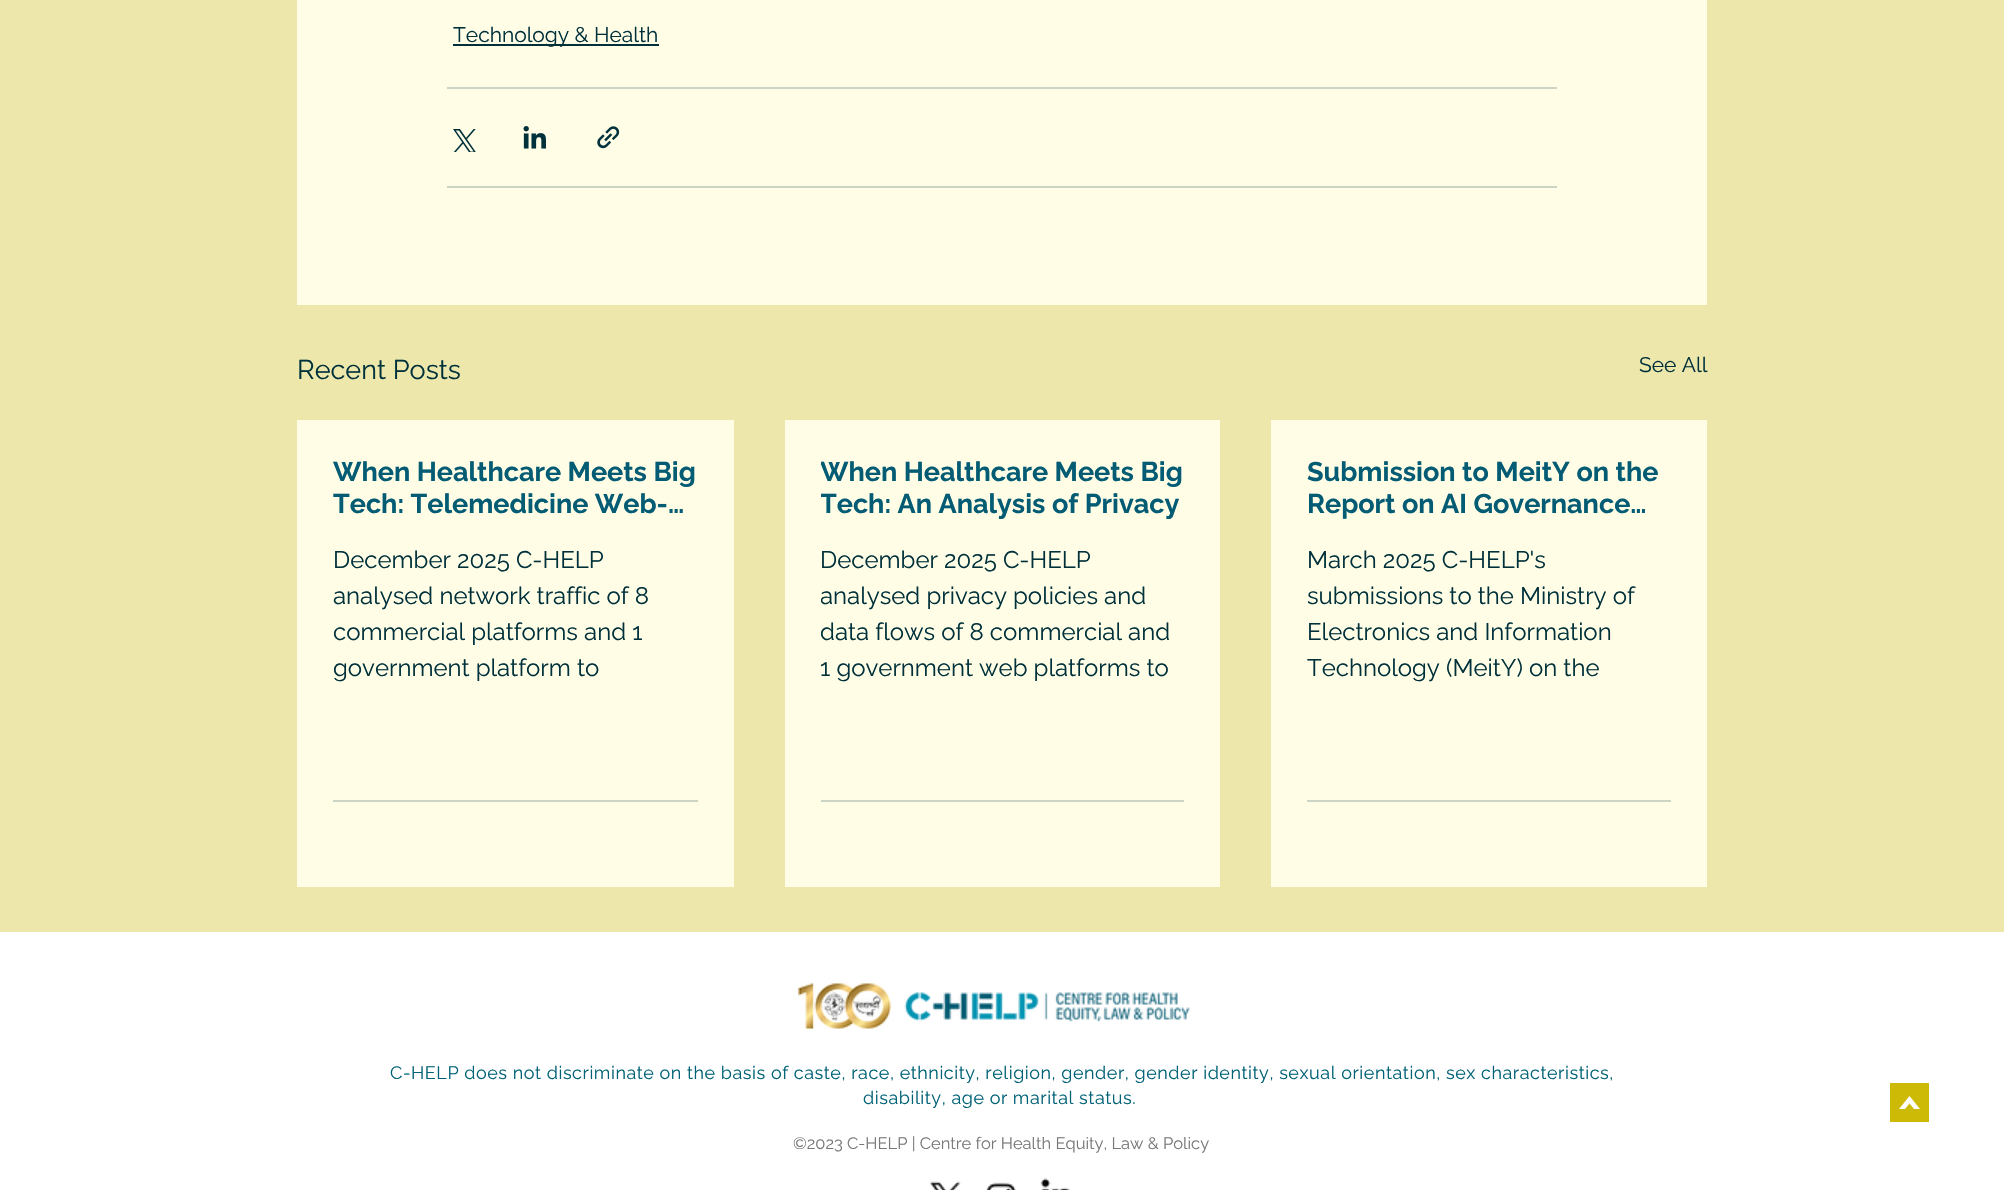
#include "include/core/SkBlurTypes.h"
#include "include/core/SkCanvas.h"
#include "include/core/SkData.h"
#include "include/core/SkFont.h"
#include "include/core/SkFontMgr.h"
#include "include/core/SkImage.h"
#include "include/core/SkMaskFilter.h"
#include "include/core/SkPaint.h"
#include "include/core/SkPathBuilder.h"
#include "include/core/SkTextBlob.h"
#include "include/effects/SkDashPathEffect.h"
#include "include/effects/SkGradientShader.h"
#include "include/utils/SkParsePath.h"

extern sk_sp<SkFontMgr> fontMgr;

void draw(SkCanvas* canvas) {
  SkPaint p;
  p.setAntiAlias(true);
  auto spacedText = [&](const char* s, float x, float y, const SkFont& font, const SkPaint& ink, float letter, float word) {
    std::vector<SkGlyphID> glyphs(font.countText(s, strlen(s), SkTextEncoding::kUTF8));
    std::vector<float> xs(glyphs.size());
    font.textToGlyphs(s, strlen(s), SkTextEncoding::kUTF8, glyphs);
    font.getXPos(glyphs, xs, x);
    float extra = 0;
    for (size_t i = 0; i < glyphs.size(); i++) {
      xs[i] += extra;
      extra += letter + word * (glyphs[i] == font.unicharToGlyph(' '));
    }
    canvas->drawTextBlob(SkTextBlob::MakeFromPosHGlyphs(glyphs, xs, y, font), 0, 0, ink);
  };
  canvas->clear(SK_ColorWHITE);
  p.setColor(SkColorSetRGB(237, 231, 171));
  canvas->drawRect(SkRect::MakeLTRB(0, 0, 2004, 932), p);
  p.setColor(SkColorSetRGB(255, 253, 230));
  canvas->drawRect(SkRect::MakeLTRB(297, 0, 1707, 305), p);
  p.setColor(SkColorSetRGB(0, 49, 59));
  canvas->drawRect(SkRect::MakeLTRB(453, 44, 659, 46), p);
  p.setColor(SkColorSetRGB(204, 212, 196));
  canvas->drawRect(SkRect::MakeLTRB(447, 87, 1557, 89), p);
  canvas->drawImageRect(SkImages::DeferredFromEncodedData(SkData::MakeFromFileName("images/1.png")), SkRect::MakeLTRB(453, 129, 476, 152), SkSamplingOptions());
  canvas->drawImageRect(SkImages::DeferredFromEncodedData(SkData::MakeFromFileName("images/2.png")), SkRect::MakeLTRB(523, 126, 546, 149), SkSamplingOptions());
  canvas->drawImageRect(SkImages::DeferredFromEncodedData(SkData::MakeFromFileName("images/3.png")), SkRect::MakeLTRB(597, 126, 620, 149), SkSamplingOptions());
  canvas->drawRect(SkRect::MakeLTRB(447, 186, 1557, 188), p);
  p.setColor(SkColorSetRGB(255, 253, 230));
  canvas->drawRect(SkRect::MakeLTRB(297, 420, 734, 887), p);
  p.setColor(SkColorSetRGB(204, 212, 196));
  canvas->drawRect(SkRect::MakeLTRB(333, 800, 698, 802), p);
  p.setColor(SkColorSetRGB(255, 253, 230));
  canvas->drawRect(SkRect::MakeLTRB(785, 420, 1220, 887), p);
  p.setColor(SkColorSetRGB(204, 212, 196));
  canvas->drawRect(SkRect::MakeLTRB(821, 800, 1184, 802), p);
  p.setColor(SkColorSetRGB(255, 253, 230));
  canvas->drawRect(SkRect::MakeLTRB(1271, 420, 1707, 887), p);
  p.setColor(SkColorSetRGB(204, 212, 196));
  canvas->drawRect(SkRect::MakeLTRB(1307, 800, 1671, 802), p);
  canvas->drawImageRect(SkImages::DeferredFromEncodedData(SkData::MakeFromFileName("images/4.png")), SkRect::MakeLTRB(798, 982, 891, 1030), SkSamplingOptions());
  canvas->drawImageRect(SkImages::DeferredFromEncodedData(SkData::MakeFromFileName("images/5.png")), SkRect::MakeLTRB(904, 992, 1190, 1022), SkSamplingOptions());
  canvas->drawImageRect(SkImages::DeferredFromEncodedData(SkData::MakeFromFileName("images/6.png")), SkRect::MakeLTRB(929, 1181, 961, 1190), SkSamplingOptions());
  canvas->drawImageRect(SkImages::DeferredFromEncodedData(SkData::MakeFromFileName("images/7.png")), SkRect::MakeLTRB(986, 1182, 1016, 1190), SkSamplingOptions());
  canvas->drawImageRect(SkImages::DeferredFromEncodedData(SkData::MakeFromFileName("images/8.png")), SkRect::MakeLTRB(1040, 1178, 1070, 1190), SkSamplingOptions());
  p.setColor(SkColorSetRGB(204, 186, 6));
  canvas->drawPath(SkPathBuilder().moveTo(1890, 1083).lineTo(1890, 1122).lineTo(1929, 1122).lineTo(1929, 1083).close().moveTo(1914, 1109).lineTo(1909.5f, 1103.5f).lineTo(1905, 1109).lineTo(1899, 1109).lineTo(1909.5f, 1096).lineTo(1920, 1109).close().detach(), p);
  SkFont font1(fontMgr->matchFamilyStyle("Raleway", SkFontStyle::Normal()), 21);
  font1.setSubpixel(true);
  p.setColor(SkColorSetRGB(0, 49, 59));
  canvas->drawString("Technology & Health", 453, 42, font1, p);
  SkFont font2(fontMgr->matchFamilyStyle("Raleway", SkFontStyle::Normal()), 27);
  font2.setSubpixel(true);
  canvas->drawString("Recent Posts", 297, 379, font2, p);
  canvas->drawString("See All", 1639, 372, font1, p);
  SkFont font3(fontMgr->matchFamilyStyle("Raleway", SkFontStyle::Bold()), 27);
  font3.setSubpixel(true);
  p.setColor(SkColorSetRGB(4, 92, 116));
  canvas->drawString("When Healthcare Meets Big", 333, 481, font3, p);
  canvas->drawString("Tech: Telemedicine Web-…", 333, 513, font3, p);
  SkFont font4(fontMgr->matchFamilyStyle("Raleway", SkFontStyle::Normal()), 24);
  font4.setSubpixel(true);
  p.setColor(SkColorSetRGB(0, 49, 59));
  canvas->drawString("December 2025 C-HELP", 333, 568, font4, p);
  canvas->drawString("analysed network traffic of 8", 333, 604, font4, p);
  canvas->drawString("commercial platforms and 1", 333, 640, font4, p);
  canvas->drawString("government platform to", 333, 676, font4, p);
  canvas->save();
  canvas->clipRect(SkRect::MakeLTRB(821, 456, 1184, 519));
  p.setColor(SkColorSetRGB(4, 92, 116));
  canvas->drawString("When Healthcare Meets Big", 820, 481, font3, p);
  canvas->drawString("Tech: An Analysis of Privacy", 820, 513, font3, p);
  canvas->restore();
  p.setColor(SkColorSetRGB(0, 49, 59));
  canvas->drawString("December 2025 C-HELP", 820, 568, font4, p);
  canvas->save();
  canvas->clipRect(SkRect::MakeLTRB(821, 543, 1184, 687));
  canvas->drawString("analysed privacy policies and", 820, 604, font4, p);
  canvas->restore();
  canvas->drawString("data flows of 8 commercial and", 820, 640, font4, p);
  canvas->drawString("1 government web platforms to", 820, 676, font4, p);
  p.setColor(SkColorSetRGB(4, 92, 116));
  canvas->drawString("Submission to MeitY on the", 1307, 481, font3, p);
  canvas->drawString("Report on AI Governance…", 1307, 513, font3, p);
  p.setColor(SkColorSetRGB(0, 49, 59));
  canvas->drawString("March 2025 C-HELP's", 1307, 568, font4, p);
  canvas->drawString("submissions to the Ministry of", 1307, 604, font4, p);
  canvas->drawString("Electronics and Information", 1307, 640, font4, p);
  canvas->drawString("Technology (MeitY) on the", 1307, 676, font4, p);
  SkFont font5(fontMgr->matchFamilyStyle("Raleway", SkFontStyle::Normal()), 18);
  font5.setSubpixel(true);
  p.setColor(SkColorSetRGB(0, 98, 118));
  spacedText("C-HELP does not discriminate on the basis of caste, race, ethnicity, religion, gender, gender identity, sexual orientation, sex characteristics,", 390, 1079, font5, p, 0.54f, 0);
  spacedText("disability, age or marital status.", 863, 1104, font5, p, 0.54f, 0);
  SkFont font6(fontMgr->matchFamilyStyle("Raleway", SkFontStyle::Normal()), 16.5f);
  font6.setSubpixel(true);
  p.setColor(SkColorSetRGB(120, 120, 120));
  canvas->drawString("©2023 C-HELP | Centre for Health Equity, Law & Policy", 793, 1149, font6, p);
}
